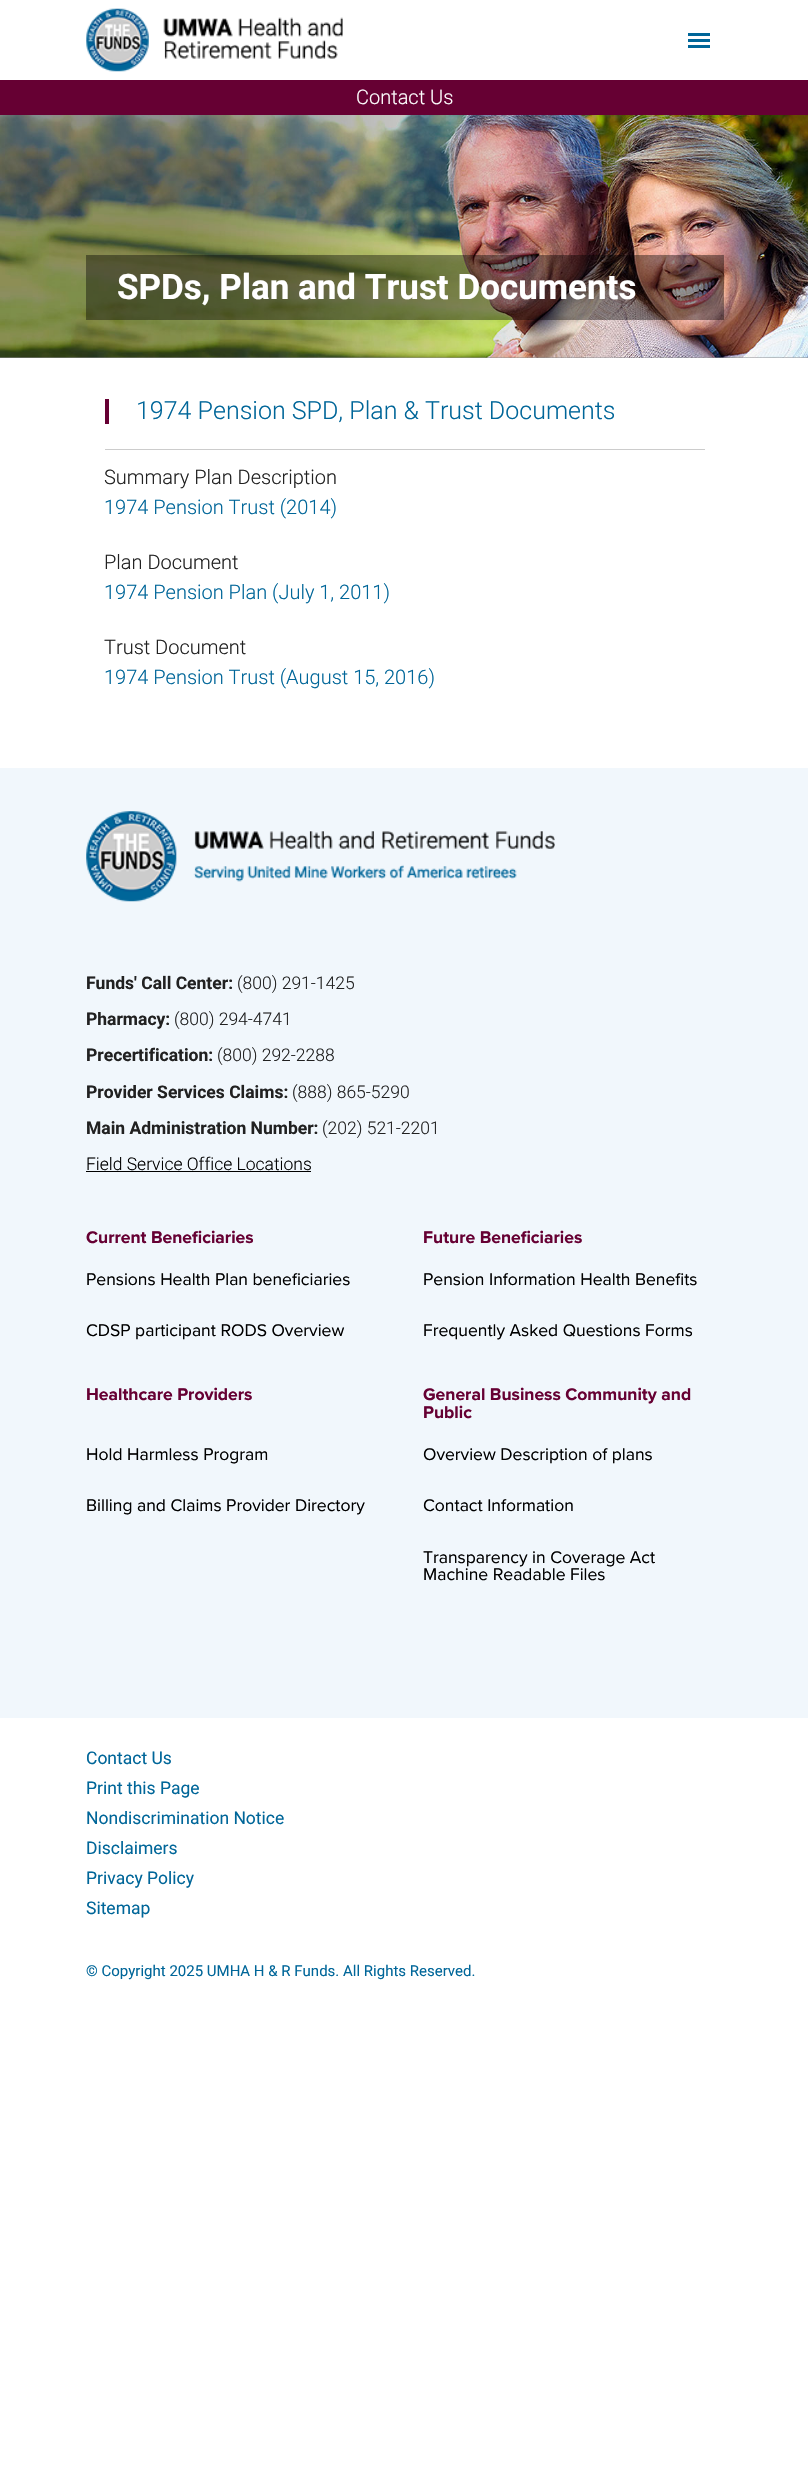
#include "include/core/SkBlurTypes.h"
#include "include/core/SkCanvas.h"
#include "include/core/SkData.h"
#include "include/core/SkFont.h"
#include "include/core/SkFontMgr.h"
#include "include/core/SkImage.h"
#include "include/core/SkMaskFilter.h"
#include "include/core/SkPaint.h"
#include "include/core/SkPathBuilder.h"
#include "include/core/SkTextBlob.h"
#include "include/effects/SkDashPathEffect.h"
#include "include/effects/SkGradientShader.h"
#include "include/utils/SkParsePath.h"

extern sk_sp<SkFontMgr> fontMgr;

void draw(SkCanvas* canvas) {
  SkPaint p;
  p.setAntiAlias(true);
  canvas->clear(SK_ColorWHITE);
  canvas->drawImageRect(SkImages::DeferredFromEncodedData(SkData::MakeFromFileName("images/1.png")), SkRect::MakeLTRB(86, 8, 343, 72), SkSamplingOptions());
  p.setColor(SkColorSetRGB(0, 102, 153));
  canvas->drawRect(SkRect::MakeLTRB(688, 33, 710, 36), p);
  canvas->drawRect(SkRect::MakeLTRB(688, 39, 710, 42), p);
  canvas->drawRect(SkRect::MakeLTRB(688, 45, 710, 48), p);
  p.setColor(SkColorSetRGB(102, 0, 51));
  canvas->drawRect(SkRect::MakeLTRB(0, 80, 808, 115), p);
  p.setColor(SkColorSetRGB(140, 141, 145));
  canvas->drawRect(SkRect::MakeLTRB(0, 357, 808, 358), p);
  canvas->drawImageRect(SkImages::DeferredFromEncodedData(SkData::MakeFromFileName("images/2.png")), SkRect::MakeLTRB(0, 115, 808, 358), SkSamplingOptions());
  p.setColor(SkColorSetARGB(102, 0, 0, 0));
  canvas->drawRect(SkRect::MakeLTRB(86, 255, 724, 320), p);
  p.setColor(SkColorSetRGB(102, 0, 51));
  canvas->drawRect(SkRect::MakeLTRB(105, 399, 109, 424), p);
  p.setColor(SkColorSetRGB(204, 204, 204));
  canvas->drawRect(SkRect::MakeLTRB(105, 449, 705, 450), p);
  p.setColor(SkColorSetRGB(241, 247, 252));
  canvas->drawRect(SkRect::MakeLTRB(0, 768, 808, 1718), p);
  canvas->drawImageRect(SkImages::DeferredFromEncodedData(SkData::MakeFromFileName("images/3.png")), SkRect::MakeLTRB(86, 811, 555, 902), SkSamplingOptions());
  p.setColor(SK_ColorBLACK);
  canvas->drawRect(SkRect::MakeLTRB(86, 1171, 311, 1172), p);
  SkFont font1(fontMgr->matchFamilyStyle("Roboto", SkFontStyle(300, SkFontStyle::kNormal_Width, SkFontStyle::kUpright_Slant)), 20);
  font1.setSubpixel(true);
  p.setColor(SK_ColorWHITE);
  canvas->drawString("Contact Us", 356, 104, font1, p);
  SkFont font2(fontMgr->matchFamilyStyle("Roboto", SkFontStyle::Bold()), 35);
  font2.setSubpixel(true);
  canvas->drawString("SPDs, Plan and Trust Documents", 117, 299, font2, p);
  SkFont font3(fontMgr->matchFamilyStyle("Roboto", SkFontStyle(300, SkFontStyle::kNormal_Width, SkFontStyle::kUpright_Slant)), 25);
  font3.setSubpixel(true);
  p.setColor(SkColorSetRGB(0, 102, 153));
  canvas->drawString("1974 Pension SPD, Plan & Trust Documents", 136, 419, font3, p);
  p.setColor(SkColorSetRGB(33, 33, 33));
  canvas->drawString("Summary Plan Description", 104, 484, font1, p);
  p.setColor(SkColorSetRGB(0, 102, 153));
  canvas->drawString("1974 Pension Trust (2014)", 104, 514, font1, p);
  p.setColor(SkColorSetRGB(33, 33, 33));
  canvas->drawString("Plan Document", 104, 569, font1, p);
  p.setColor(SkColorSetRGB(0, 102, 153));
  canvas->drawString("1974 Pension Plan (July 1, 2011)", 104, 599, font1, p);
  p.setColor(SkColorSetRGB(33, 33, 33));
  canvas->drawString("Trust Document", 104, 654, font1, p);
  p.setColor(SkColorSetRGB(0, 102, 153));
  canvas->drawString("1974 Pension Trust (August 15, 2016)", 104, 684, font1, p);
  SkFont font4(fontMgr->matchFamilyStyle("Roboto", SkFontStyle::Bold()), 17.5f);
  font4.setSubpixel(true);
  p.setColor(SkColorSetRGB(33, 33, 33));
  canvas->drawString("Funds' Call Center:", 86, 989, font4, p);
  SkFont font5(fontMgr->matchFamilyStyle("Roboto", SkFontStyle(300, SkFontStyle::kNormal_Width, SkFontStyle::kUpright_Slant)), 17.5f);
  font5.setSubpixel(true);
  canvas->drawString("(800) 291-1425", 237, 989, font5, p);
  canvas->drawString("Pharmacy:", 86, 1025, font4, p);
  canvas->drawString("(800) 294-4741", 174, 1025, font5, p);
  canvas->drawString("Precertification:", 86, 1061, font4, p);
  canvas->drawString("(800) 292-2288", 217, 1061, font5, p);
  canvas->drawString("Provider Services Claims:", 86, 1098, font4, p);
  canvas->drawString("(888) 865-5290", 292, 1098, font5, p);
  canvas->drawString("Main Administration Number:", 86, 1134, font4, p);
  canvas->drawString("(202) 521-2201", 322, 1134, font5, p);
  p.setColor(SK_ColorBLACK);
  canvas->drawString("Field Service Office Locations", 86, 1170, font5, p);
  SkFont font6(fontMgr->matchFamilyStyle("Proxima Nova", SkFontStyle::Bold()), 17.5f);
  font6.setSubpixel(true);
  p.setColor(SkColorSetRGB(102, 0, 51));
  canvas->drawString("Current Beneficiaries", 86, 1243, font6, p);
  SkFont font7(fontMgr->matchFamilyStyle("Proxima Nova", SkFontStyle::Normal()), 17.5f);
  font7.setSubpixel(true);
  p.setColor(SK_ColorBLACK);
  canvas->drawString("Pensions Health Plan beneficiaries", 86, 1285, font7, p);
  canvas->drawString("CDSP participant RODS Overview", 86, 1336, font7, p);
  p.setColor(SkColorSetRGB(102, 0, 51));
  canvas->drawString("Future Beneficiaries", 423, 1243, font6, p);
  p.setColor(SK_ColorBLACK);
  canvas->drawString("Pension Information Health Benefits", 423, 1285, font7, p);
  canvas->drawString("Frequently Asked Questions Forms", 423, 1336, font7, p);
  p.setColor(SkColorSetRGB(102, 0, 51));
  canvas->drawString("Healthcare Providers", 86, 1400, font6, p);
  p.setColor(SK_ColorBLACK);
  canvas->drawString("Hold Harmless Program", 86, 1460, font7, p);
  canvas->drawString("Billing and Claims Provider Directory", 86, 1511, font7, p);
  p.setColor(SkColorSetRGB(102, 0, 51));
  canvas->drawString("General Business Community and", 423, 1400, font6, p);
  canvas->drawString("Public", 423, 1418, font6, p);
  p.setColor(SK_ColorBLACK);
  canvas->drawString("Overview Description of plans", 423, 1460, font7, p);
  canvas->drawString("Contact Information", 423, 1511, font7, p);
  canvas->drawString("Transparency in Coverage Act", 423, 1563, font7, p);
  canvas->drawString("Machine Readable Files", 423, 1580, font7, p);
  SkFont font8(fontMgr->matchFamilyStyle("Roboto", SkFontStyle::Normal()), 17.5f);
  font8.setSubpixel(true);
  p.setColor(SkColorSetRGB(0, 102, 153));
  canvas->drawString("Contact Us", 86, 1764, font8, p);
  canvas->drawString("Print this Page", 86, 1794, font8, p);
  canvas->drawString("Nondiscrimination Notice", 86, 1824, font8, p);
  canvas->drawString("Disclaimers", 86, 1854, font8, p);
  canvas->drawString("Privacy Policy", 86, 1884, font8, p);
  canvas->drawString("Sitemap", 86, 1914, font8, p);
  SkFont font9(fontMgr->matchFamilyStyle("Roboto", SkFontStyle::Normal()), 15);
  font9.setSubpixel(true);
  canvas->drawString("© Copyright 2025 UMHA H & R Funds. All Rights Reserved.", 86, 1976, font9, p);
}
